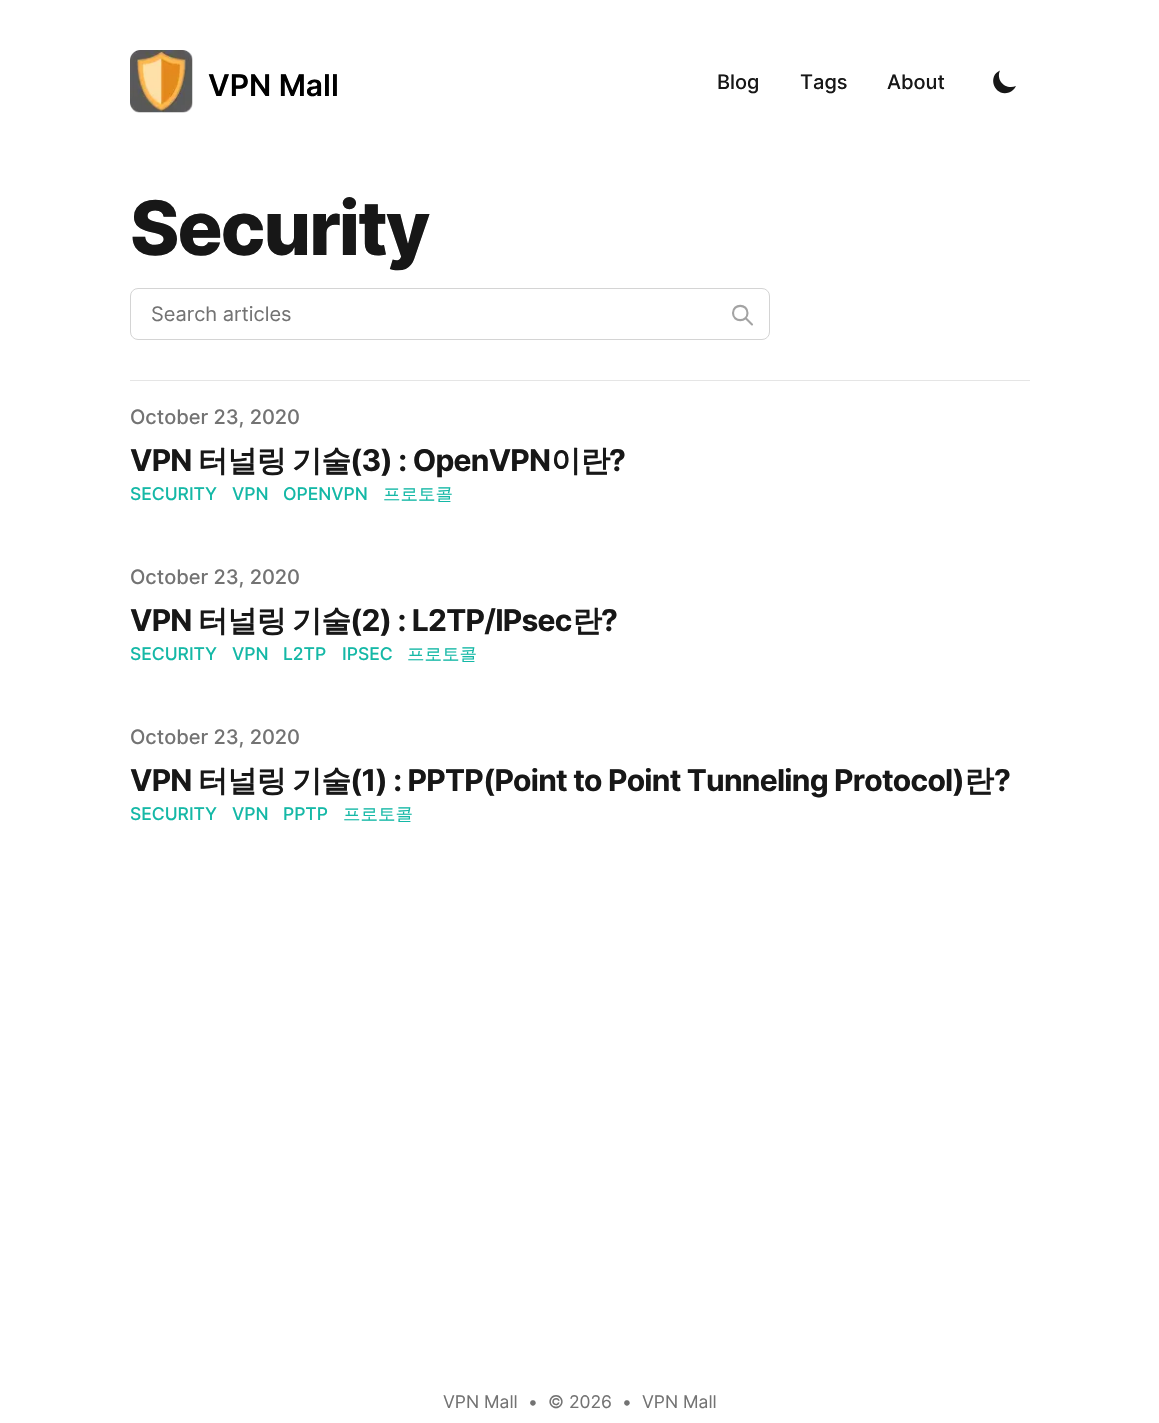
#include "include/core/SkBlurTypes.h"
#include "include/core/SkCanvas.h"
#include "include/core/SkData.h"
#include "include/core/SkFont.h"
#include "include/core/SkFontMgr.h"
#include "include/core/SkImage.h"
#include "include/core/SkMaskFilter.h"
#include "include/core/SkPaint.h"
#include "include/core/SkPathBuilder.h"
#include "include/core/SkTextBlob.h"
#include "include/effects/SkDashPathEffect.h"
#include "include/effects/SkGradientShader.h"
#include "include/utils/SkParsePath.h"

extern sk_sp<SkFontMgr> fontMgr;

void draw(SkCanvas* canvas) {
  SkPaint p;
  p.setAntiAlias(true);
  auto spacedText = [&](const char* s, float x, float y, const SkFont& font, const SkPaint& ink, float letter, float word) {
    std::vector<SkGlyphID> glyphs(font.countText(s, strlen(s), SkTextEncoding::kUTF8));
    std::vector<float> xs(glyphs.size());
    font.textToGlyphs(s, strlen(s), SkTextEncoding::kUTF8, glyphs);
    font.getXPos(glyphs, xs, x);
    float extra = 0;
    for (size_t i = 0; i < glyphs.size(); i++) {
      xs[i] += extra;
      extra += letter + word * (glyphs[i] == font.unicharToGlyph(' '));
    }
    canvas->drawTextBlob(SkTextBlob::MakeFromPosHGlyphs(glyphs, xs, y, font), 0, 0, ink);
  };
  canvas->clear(SK_ColorWHITE);
  canvas->drawImageRect(SkImages::DeferredFromEncodedData(SkData::MakeFromFileName("images/1.png")), SkRect::MakeLTRB(130, 50, 193, 113), SkSamplingOptions());
  p.setColor(SkColorSetRGB(23, 23, 23));
  canvas->drawPath(SkPathBuilder().moveTo(1016, 86).cubicTo(1006, 90.5f, 995.5f, 80.5f, 1000, 70.5f).cubicTo(986.5f, 76.5f, 995, 97.5f, 1009, 92.5f).cubicTo(1012, 91.5f, 1014.5f, 89, 1016, 86).close().detach(), p);
  p.setStyle(SkPaint::kStroke_Style);
  p.setStrokeWidth(1);
  p.setColor(SkColorSetRGB(212, 212, 212));
  canvas->drawRoundRect(SkRect::MakeLTRB(130.5f, 288.5f, 769.5f, 339.5f), 7.5f, 7.5f, p);
  p.setStrokeWidth(2.1f);
  p.setStrokeCap(SkPaint::kRound_Cap);
  p.setStrokeJoin(SkPaint::kRound_Join);
  p.setColor(SkColorSetRGB(163, 163, 163));
  canvas->drawPath(SkPathBuilder().moveTo(752, 324.5f).lineTo(745.5f, 318).moveTo(747.5f, 313).cubicTo(747.5f, 322.5f, 733, 322.5f, 733, 313).cubicTo(733, 303.5f, 747.5f, 303.5f, 747.5f, 313).close().detach(), p);
  p.setStyle(SkPaint::kFill_Style);
  p.setColor(SkColorSetRGB(229, 229, 229));
  canvas->drawRect(SkRect::MakeLTRB(130, 380, 1030, 381), p);
  SkFont font1(fontMgr->matchFamilyStyle("Inter", SkFontStyle(600, SkFontStyle::kNormal_Width, SkFontStyle::kItalic_Slant)), 30);
  font1.setSubpixel(true);
  p.setColor(SK_ColorBLACK);
  canvas->drawString("VPN Mall", 208, 96, font1, p);
  SkFont font2(fontMgr->matchFamilyStyle("Inter", SkFontStyle(500, SkFontStyle::kNormal_Width, SkFontStyle::kItalic_Slant)), 20);
  font2.setSubpixel(true);
  p.setColor(SkColorSetRGB(23, 23, 23));
  canvas->drawString("Blog", 717, 89, font2, p);
  canvas->drawString("Tags", 800, 89, font2, p);
  canvas->drawString("About", 887, 89, font2, p);
  SkFont font3(fontMgr->matchFamilyStyle("Inter", SkFontStyle(800, SkFontStyle::kNormal_Width, SkFontStyle::kItalic_Slant)), 75);
  font3.setSubpixel(true);
  spacedText("Security", 130, 255, font3, p, -2, 0);
  SkFont font4(fontMgr->matchFamilyStyle("Inter", SkFontStyle::Italic()), 20);
  font4.setSubpixel(true);
  p.setColor(SkColorSetRGB(115, 115, 115));
  canvas->drawString("Search articles", 151, 321, font4, p);
  canvas->drawString("October 23, 2020", 130, 424, font2, p);
  SkFont font5(fontMgr->matchFamilyStyle("Inter", SkFontStyle::BoldItalic()), 30);
  font5.setSubpixel(true);
  p.setColor(SkColorSetRGB(23, 23, 23));
  spacedText("VPN", 130, 471, font5, p, -0.75f, 0);
  SkFont font6(fontMgr->matchFamilyStyle("WenQuanYi Zen Hei", SkFontStyle::Bold()), 30);
  font6.setSubpixel(true);
  spacedText("터널링", 198, 471, font6, p, -0.75f, 0);
  spacedText("기술", 292, 471, font6, p, -0.75f, 0);
  spacedText("(3) : OpenVPN", 350, 471, font5, p, -0.75f, 0);
  spacedText("이란", 551, 471, font6, p, -0.75f, 0);
  spacedText("?", 609, 471, font5, p, -0.75f, 0);
  SkFont font7(fontMgr->matchFamilyStyle("Inter", SkFontStyle(500, SkFontStyle::kNormal_Width, SkFontStyle::kItalic_Slant)), 17.5f);
  font7.setSubpixel(true);
  p.setColor(SkColorSetRGB(20, 184, 166));
  canvas->drawString("SECURITY", 130, 500, font7, p);
  canvas->drawString("VPN", 232, 500, font7, p);
  canvas->drawString("OPENVPN", 283, 500, font7, p);
  SkFont font8(fontMgr->matchFamilyStyle("WenQuanYi Zen Hei", SkFontStyle(500, SkFontStyle::kNormal_Width, SkFontStyle::kUpright_Slant)), 17.5f);
  font8.setSubpixel(true);
  canvas->drawString("프로토콜", 383, 500, font8, p);
  p.setColor(SkColorSetRGB(115, 115, 115));
  canvas->drawString("October 23, 2020", 130, 584, font2, p);
  p.setColor(SkColorSetRGB(23, 23, 23));
  spacedText("VPN", 130, 631, font5, p, -0.75f, 0);
  spacedText("터널링", 198, 631, font6, p, -0.75f, 0);
  spacedText("기술", 292, 631, font6, p, -0.75f, 0);
  spacedText("(2) : L2TP/IPsec", 350, 631, font5, p, -0.75f, 0);
  spacedText("란", 572, 631, font6, p, -0.75f, 0);
  spacedText("?", 601, 631, font5, p, -0.75f, 0);
  p.setColor(SkColorSetRGB(20, 184, 166));
  canvas->drawString("SECURITY", 130, 660, font7, p);
  canvas->drawString("VPN", 232, 660, font7, p);
  canvas->drawString("L2TP", 283, 660, font7, p);
  canvas->drawString("IPSEC", 342, 660, font7, p);
  canvas->drawString("프로토콜", 407, 660, font8, p);
  p.setColor(SkColorSetRGB(115, 115, 115));
  canvas->drawString("October 23, 2020", 130, 744, font2, p);
  p.setColor(SkColorSetRGB(23, 23, 23));
  spacedText("VPN", 130, 791, font5, p, -0.75f, 0);
  spacedText("터널링", 198, 791, font6, p, -0.75f, 0);
  spacedText("기술", 292, 791, font6, p, -0.75f, 0);
  spacedText("(1) : PPTP(Point to Point Tunneling Protocol)", 350, 791, font5, p, -0.75f, 0);
  spacedText("란", 964, 791, font6, p, -0.75f, 0);
  spacedText("?", 994, 791, font5, p, -0.75f, 0);
  p.setColor(SkColorSetRGB(20, 184, 166));
  canvas->drawString("SECURITY", 130, 820, font7, p);
  canvas->drawString("VPN", 232, 820, font7, p);
  canvas->drawString("PPTP", 283, 820, font7, p);
  canvas->drawString("프로토콜", 343, 820, font8, p);
  SkFont font9(fontMgr->matchFamilyStyle("Inter", SkFontStyle::Italic()), 17.5f);
  font9.setSubpixel(true);
  p.setColor(SkColorSetRGB(115, 115, 115));
  canvas->drawString("VPN Mall", 443, 1408, font9, p);
  canvas->drawString("•", 528, 1408, font9, p);
  canvas->drawString("© 2026", 548, 1408, font9, p);
  canvas->drawString("•", 622, 1408, font9, p);
  canvas->drawString("VPN Mall", 642, 1408, font9, p);
}
